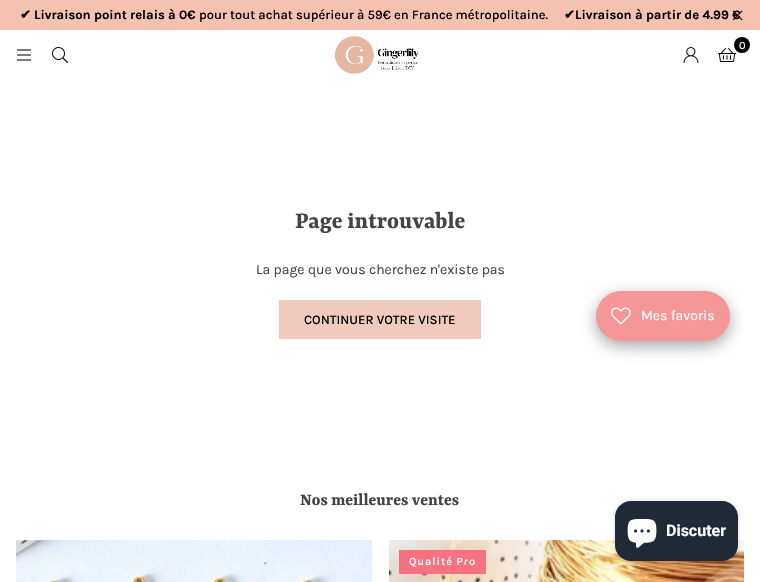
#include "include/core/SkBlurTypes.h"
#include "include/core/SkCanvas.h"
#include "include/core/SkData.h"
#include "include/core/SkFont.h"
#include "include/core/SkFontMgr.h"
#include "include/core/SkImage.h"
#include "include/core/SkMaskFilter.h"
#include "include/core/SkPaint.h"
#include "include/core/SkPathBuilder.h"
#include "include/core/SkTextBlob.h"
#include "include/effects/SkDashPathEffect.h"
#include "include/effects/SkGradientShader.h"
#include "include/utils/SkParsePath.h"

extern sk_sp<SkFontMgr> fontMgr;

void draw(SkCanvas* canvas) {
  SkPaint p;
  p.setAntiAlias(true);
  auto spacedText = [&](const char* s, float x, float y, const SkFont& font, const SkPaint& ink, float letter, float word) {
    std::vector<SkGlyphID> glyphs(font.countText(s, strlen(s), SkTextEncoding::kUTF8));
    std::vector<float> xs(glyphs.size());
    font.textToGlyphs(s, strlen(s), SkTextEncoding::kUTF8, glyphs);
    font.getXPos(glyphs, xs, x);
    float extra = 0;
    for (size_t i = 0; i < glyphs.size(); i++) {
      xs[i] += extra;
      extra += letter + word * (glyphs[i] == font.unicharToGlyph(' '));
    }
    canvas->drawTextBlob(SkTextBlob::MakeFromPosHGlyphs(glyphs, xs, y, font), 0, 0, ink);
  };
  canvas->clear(SK_ColorWHITE);
  p.setColor(SkColorSetRGB(245, 194, 176));
  canvas->drawRect(SkRect::MakeLTRB(0, 0, 760, 30), p);
  canvas->drawImageRect(SkImages::DeferredFromEncodedData(SkData::MakeFromFileName("images/2.png")), SkRect::MakeLTRB(335, 36, 419, 74), SkSamplingOptions());
  canvas->drawImageRect(SkImages::DeferredFromEncodedData(SkData::MakeFromFileName("images/3.png")), SkRect::MakeLTRB(718, 48, 736, 62), SkSamplingOptions());
  p.setColor(SkColorSetRGB(3, 5, 5));
  canvas->drawCircle(742, 45, 8, p);
  canvas->drawImageRect(SkImages::DeferredFromEncodedData(SkData::MakeFromFileName("images/4.png")), SkRect::MakeLTRB(683, 47, 699, 63), SkSamplingOptions());
  canvas->drawImageRect(SkImages::DeferredFromEncodedData(SkData::MakeFromFileName("images/5.png")), SkRect::MakeLTRB(17, 49, 31, 61), SkSamplingOptions());
  canvas->drawImageRect(SkImages::DeferredFromEncodedData(SkData::MakeFromFileName("images/6.png")), SkRect::MakeLTRB(52, 47, 68, 63), SkSamplingOptions());
  p.setColor(SkColorSetRGB(239, 202, 189));
  canvas->drawRect(SkRect::MakeLTRB(279, 300, 481, 339), p);
  canvas->drawImageRect(SkImages::DeferredFromEncodedData(SkData::MakeFromFileName("images/7.png")), SkRect::MakeLTRB(16, 540, 372, 582), SkSamplingOptions());
  canvas->drawImageRect(SkImages::DeferredFromEncodedData(SkData::MakeFromFileName("images/8.png")), SkRect::MakeLTRB(389, 540, 744, 582), SkSamplingOptions());
  p.setColor(SkColorSetRGB(246, 114, 128));
  canvas->drawRect(SkRect::MakeLTRB(399, 550, 486, 574), p);
  p.setColor(SkColorSetARGB(89, 0, 0, 0));
  p.setMaskFilter(SkMaskFilter::MakeBlur(kNormal_SkBlurStyle, 7.5f));
  canvas->drawRoundRect(SkRect::MakeLTRB(596, 296, 730, 346), 25, 25, p);
  p.setMaskFilter(nullptr);
  p.setColor(SkColorSetRGB(245, 151, 151));
  canvas->drawRoundRect(SkRect::MakeLTRB(596, 291, 730, 341), 25, 25, p);
  canvas->drawImageRect(SkImages::DeferredFromEncodedData(SkData::MakeFromFileName("images/9.png")), SkRect::MakeLTRB(611, 307, 631, 325), SkSamplingOptions());
  p.setColor(SkColorSetARGB(38, 0, 0, 0));
  p.setMaskFilter(SkMaskFilter::MakeBlur(kNormal_SkBlurStyle, 2.5f));
  canvas->drawRoundRect(SkRect::MakeLTRB(615, 501, 738, 561), 16, 16, p);
  p.setMaskFilter(nullptr);
  p.setColor(SkColorSetRGB(32, 42, 54));
  canvas->drawRoundRect(SkRect::MakeLTRB(615, 501, 738, 561), 16, 16, p);
  canvas->drawImageRect(SkImages::DeferredFromEncodedData(SkData::MakeFromFileName("images/10.png")), SkRect::MakeLTRB(627, 519, 657, 548), SkSamplingOptions());
  SkFont font1(fontMgr->matchFamilyStyle("DejaVu Sans", SkFontStyle::Bold()), 13);
  font1.setSubpixel(true);
  p.setColor(SK_ColorBLACK);
  canvas->drawString("✔", 20, 19, font1, p);
  SkFont font2(fontMgr->matchFamilyStyle("Karla", SkFontStyle::Bold()), 13);
  font2.setSubpixel(true);
  canvas->drawString("Livraison point relais à 0€", 34, 19, font2, p);
  SkFont font3(fontMgr->matchFamilyStyle("Karla", SkFontStyle(500, SkFontStyle::kNormal_Width, SkFontStyle::kUpright_Slant)), 13);
  font3.setSubpixel(true);
  canvas->drawString("pour tout achat supérieur à 59€ en France métropolitaine.", 199, 19, font3, p);
  canvas->drawString("✔", 564, 19, font1, p);
  canvas->drawString("Livraison à partir de 4.99 €", 575, 19, font2, p);
  canvas->drawImageRect(SkImages::DeferredFromEncodedData(SkData::MakeFromFileName("images/1.png")), SkRect::MakeLTRB(732, 10, 743, 21), SkSamplingOptions());
  SkFont font4(fontMgr->matchFamilyStyle("Karla", SkFontStyle::Normal()), 11);
  font4.setSubpixel(true);
  p.setColor(SK_ColorWHITE);
  canvas->drawString("0", 739, 49, font4, p);
  SkFont font5(fontMgr->matchFamilyStyle("Yrsa", SkFontStyle::Bold()), 25);
  font5.setSubpixel(true);
  p.setColor(SkColorSetRGB(68, 68, 68));
  canvas->drawString("Page introuvable", 295, 228, font5, p);
  SkFont font6(fontMgr->matchFamilyStyle("Karla", SkFontStyle::Normal()), 14);
  font6.setSubpixel(true);
  canvas->drawString("La page que vous cherchez n'existe pas", 256, 274, font6, p);
  p.setColor(SK_ColorBLACK);
  canvas->drawString("CONTINUER VOTRE VISITE", 304, 324, font3, p);
  SkFont font7(fontMgr->matchFamilyStyle("Yrsa", SkFontStyle::Bold()), 18);
  font7.setSubpixel(true);
  p.setColor(SkColorSetRGB(68, 68, 68));
  canvas->drawString("Nos meilleures ventes", 300, 505, font7, p);
  SkFont font8(fontMgr->matchFamilyStyle("Karla", SkFontStyle(500, SkFontStyle::kNormal_Width, SkFontStyle::kUpright_Slant)), 11);
  font8.setSubpixel(true);
  p.setColor(SK_ColorWHITE);
  spacedText("Qualité Pro", 409, 565, font8, p, 1, 0);
  canvas->drawString("Mes favoris", 641, 320, font6, p);
  SkFont font9(fontMgr->matchFamilyStyle("Roboto", SkFontStyle::Bold()), 16);
  font9.setSubpixel(true);
  canvas->drawString("Discuter", 666, 536, font9, p);
}
